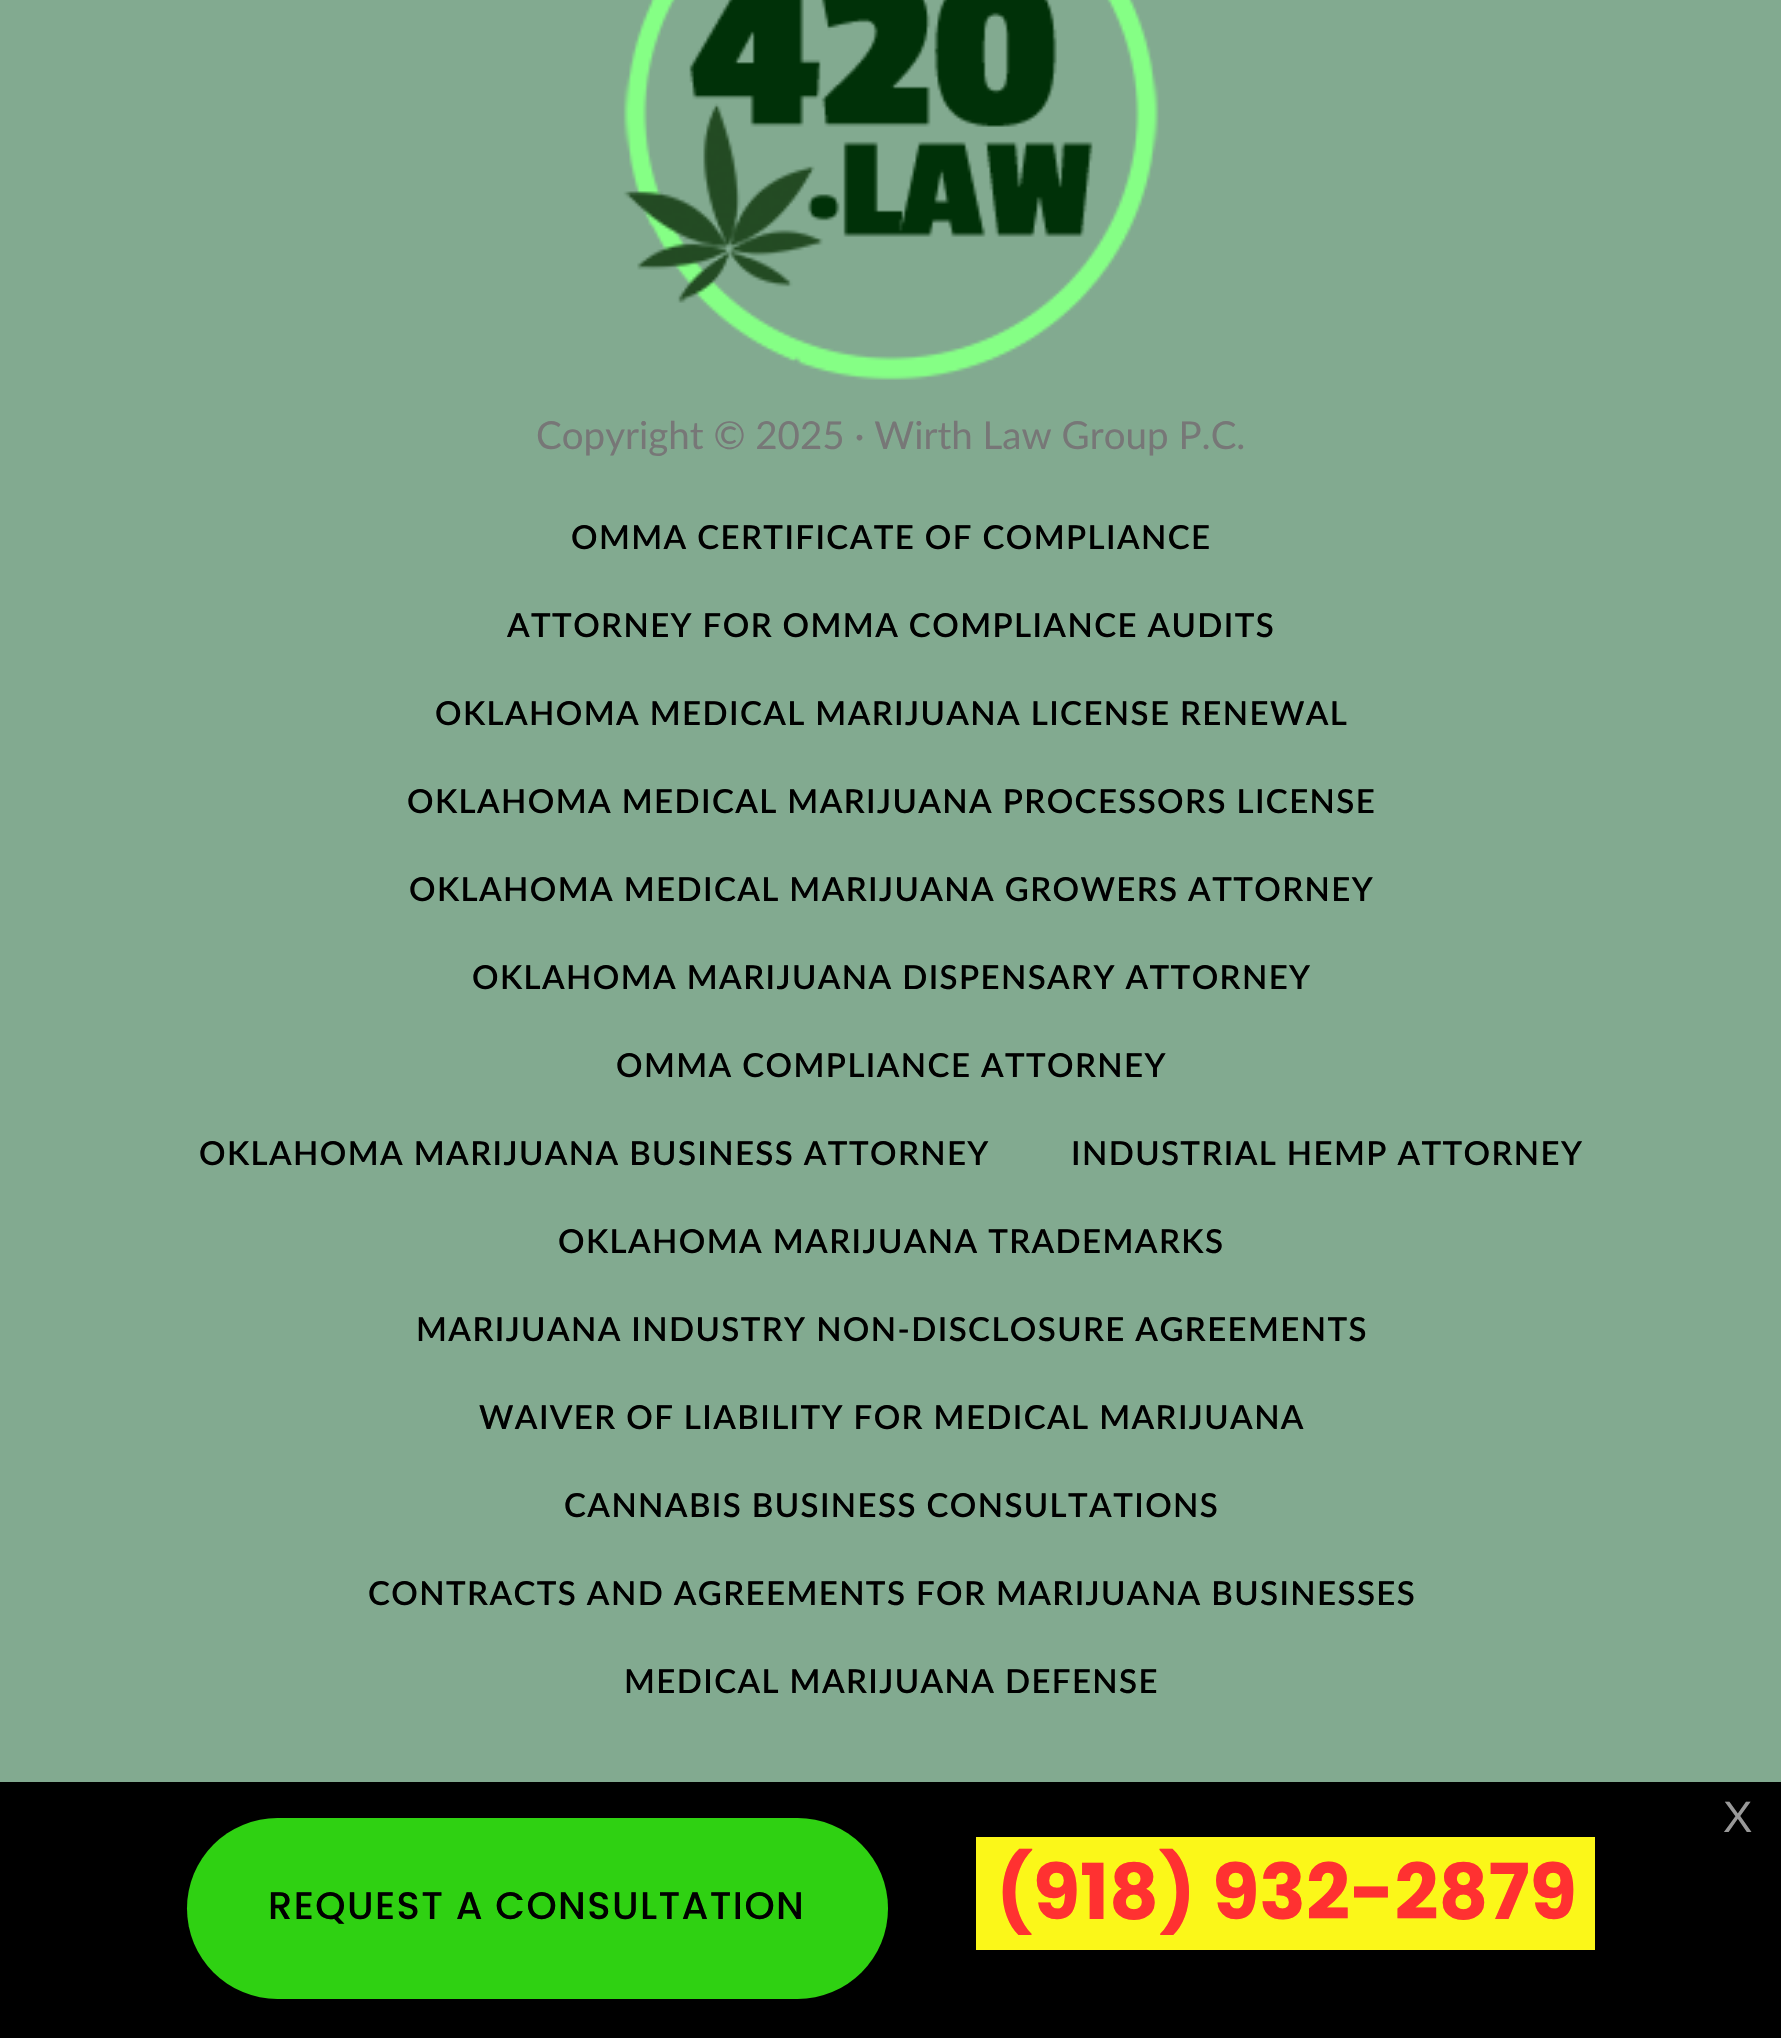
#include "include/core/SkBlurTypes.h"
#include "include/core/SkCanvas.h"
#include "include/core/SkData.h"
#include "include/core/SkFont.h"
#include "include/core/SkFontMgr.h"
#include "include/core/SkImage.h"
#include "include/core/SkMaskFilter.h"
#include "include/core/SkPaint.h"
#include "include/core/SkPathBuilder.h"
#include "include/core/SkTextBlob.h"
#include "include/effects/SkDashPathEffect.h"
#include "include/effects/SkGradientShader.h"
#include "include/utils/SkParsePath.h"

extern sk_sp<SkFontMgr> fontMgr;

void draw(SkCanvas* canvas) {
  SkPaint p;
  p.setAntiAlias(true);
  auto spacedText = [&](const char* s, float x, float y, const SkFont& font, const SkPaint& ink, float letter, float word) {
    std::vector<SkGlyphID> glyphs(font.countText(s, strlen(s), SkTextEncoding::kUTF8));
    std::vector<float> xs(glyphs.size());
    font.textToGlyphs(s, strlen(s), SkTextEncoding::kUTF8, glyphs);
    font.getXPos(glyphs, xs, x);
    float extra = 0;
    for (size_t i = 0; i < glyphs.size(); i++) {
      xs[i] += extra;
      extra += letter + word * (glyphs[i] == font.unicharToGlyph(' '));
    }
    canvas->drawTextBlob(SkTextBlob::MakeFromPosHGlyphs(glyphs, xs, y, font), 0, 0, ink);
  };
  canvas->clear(SkColorSetRGB(130, 170, 144));
  canvas->drawImageRect(SkImages::DeferredFromEncodedData(SkData::MakeFromFileName("images/1.png")), SkRect::MakeLTRB(623, 0, 1159, 380), SkSamplingOptions());
  p.setColor(SK_ColorBLACK);
  canvas->drawRect(SkRect::MakeLTRB(0, 1782, 1781, 2038), p);
  p.setColor(SkColorSetRGB(47, 209, 18));
  canvas->drawRoundRect(SkRect::MakeLTRB(187, 1818, 888, 1999), 90.5f, 90.5f, p);
  p.setColor(SkColorSetRGB(251, 247, 25));
  canvas->drawRect(SkRect::MakeLTRB(976, 1837, 1595, 1950), p);
  SkFont font1(fontMgr->matchFamilyStyle("Lato", SkFontStyle::Normal()), 38.5f);
  font1.setSubpixel(true);
  p.setColor(SkColorSetRGB(119, 119, 119));
  canvas->drawString("Copyright © 2025 · Wirth Law Group P.C.", 536, 449, font1, p);
  SkFont font2(fontMgr->matchFamilyStyle("Lato", SkFontStyle(600, SkFontStyle::kNormal_Width, SkFontStyle::kUpright_Slant)), 33);
  font2.setSubpixel(true);
  p.setColor(SK_ColorBLACK);
  spacedText("OMMA CERTIFICATE OF COMPLIANCE", 571, 549, font2, p, 1.4f, 0);
  spacedText("ATTORNEY FOR OMMA COMPLIANCE AUDITS", 507, 637, font2, p, 1.4f, 0);
  spacedText("OKLAHOMA MEDICAL MARIJUANA LICENSE RENEWAL", 435, 725, font2, p, 1.4f, 0);
  spacedText("OKLAHOMA MEDICAL MARIJUANA PROCESSORS LICENSE", 407, 813, font2, p, 1.4f, 0);
  spacedText("OKLAHOMA MEDICAL MARIJUANA GROWERS ATTORNEY", 409, 901, font2, p, 1.4f, 0);
  spacedText("OKLAHOMA MARIJUANA DISPENSARY ATTORNEY", 472, 989, font2, p, 1.4f, 0);
  spacedText("OMMA COMPLIANCE ATTORNEY", 616, 1077, font2, p, 1.4f, 0);
  spacedText("OKLAHOMA MARIJUANA BUSINESS ATTORNEY", 199, 1165, font2, p, 1.4f, 0);
  spacedText("INDUSTRIAL HEMP ATTORNEY", 1071, 1165, font2, p, 1.4f, 0);
  spacedText("OKLAHOMA MARIJUANA TRADEMARKS", 558, 1253, font2, p, 1.4f, 0);
  spacedText("MARIJUANA INDUSTRY NON-DISCLOSURE AGREEMENTS", 416, 1341, font2, p, 1.4f, 0);
  spacedText("WAIVER OF LIABILITY FOR MEDICAL MARIJUANA", 479, 1429, font2, p, 1.4f, 0);
  spacedText("CANNABIS BUSINESS CONSULTATIONS", 564, 1517, font2, p, 1.4f, 0);
  spacedText("CONTRACTS AND AGREEMENTS FOR MARIJUANA BUSINESSES", 368, 1605, font2, p, 1.4f, 0);
  spacedText("MEDICAL MARIJUANA DEFENSE", 624, 1693, font2, p, 1.4f, 0);
  SkFont font3(fontMgr->matchFamilyStyle("Liberation Sans", SkFontStyle::Normal()), 44);
  font3.setSubpixel(true);
  p.setColor(SkColorSetRGB(153, 153, 153));
  canvas->drawString("X", 1723, 1832, font3, p);
  SkFont font4(fontMgr->matchFamilyStyle("Poppins", SkFontStyle(500, SkFontStyle::kNormal_Width, SkFontStyle::kUpright_Slant)), 38.5f);
  font4.setSubpixel(true);
  p.setColor(SK_ColorBLACK);
  spacedText("REQUEST A CONSULTATION", 268, 1919, font4, p, 1.4f, 0);
  SkFont font5(fontMgr->matchFamilyStyle("Poppins", SkFontStyle::Bold()), 77);
  font5.setSubpixel(true);
  p.setColor(SkColorSetRGB(255, 49, 49));
  canvas->drawString("(918) 932-2879", 996, 1919, font5, p);
}
